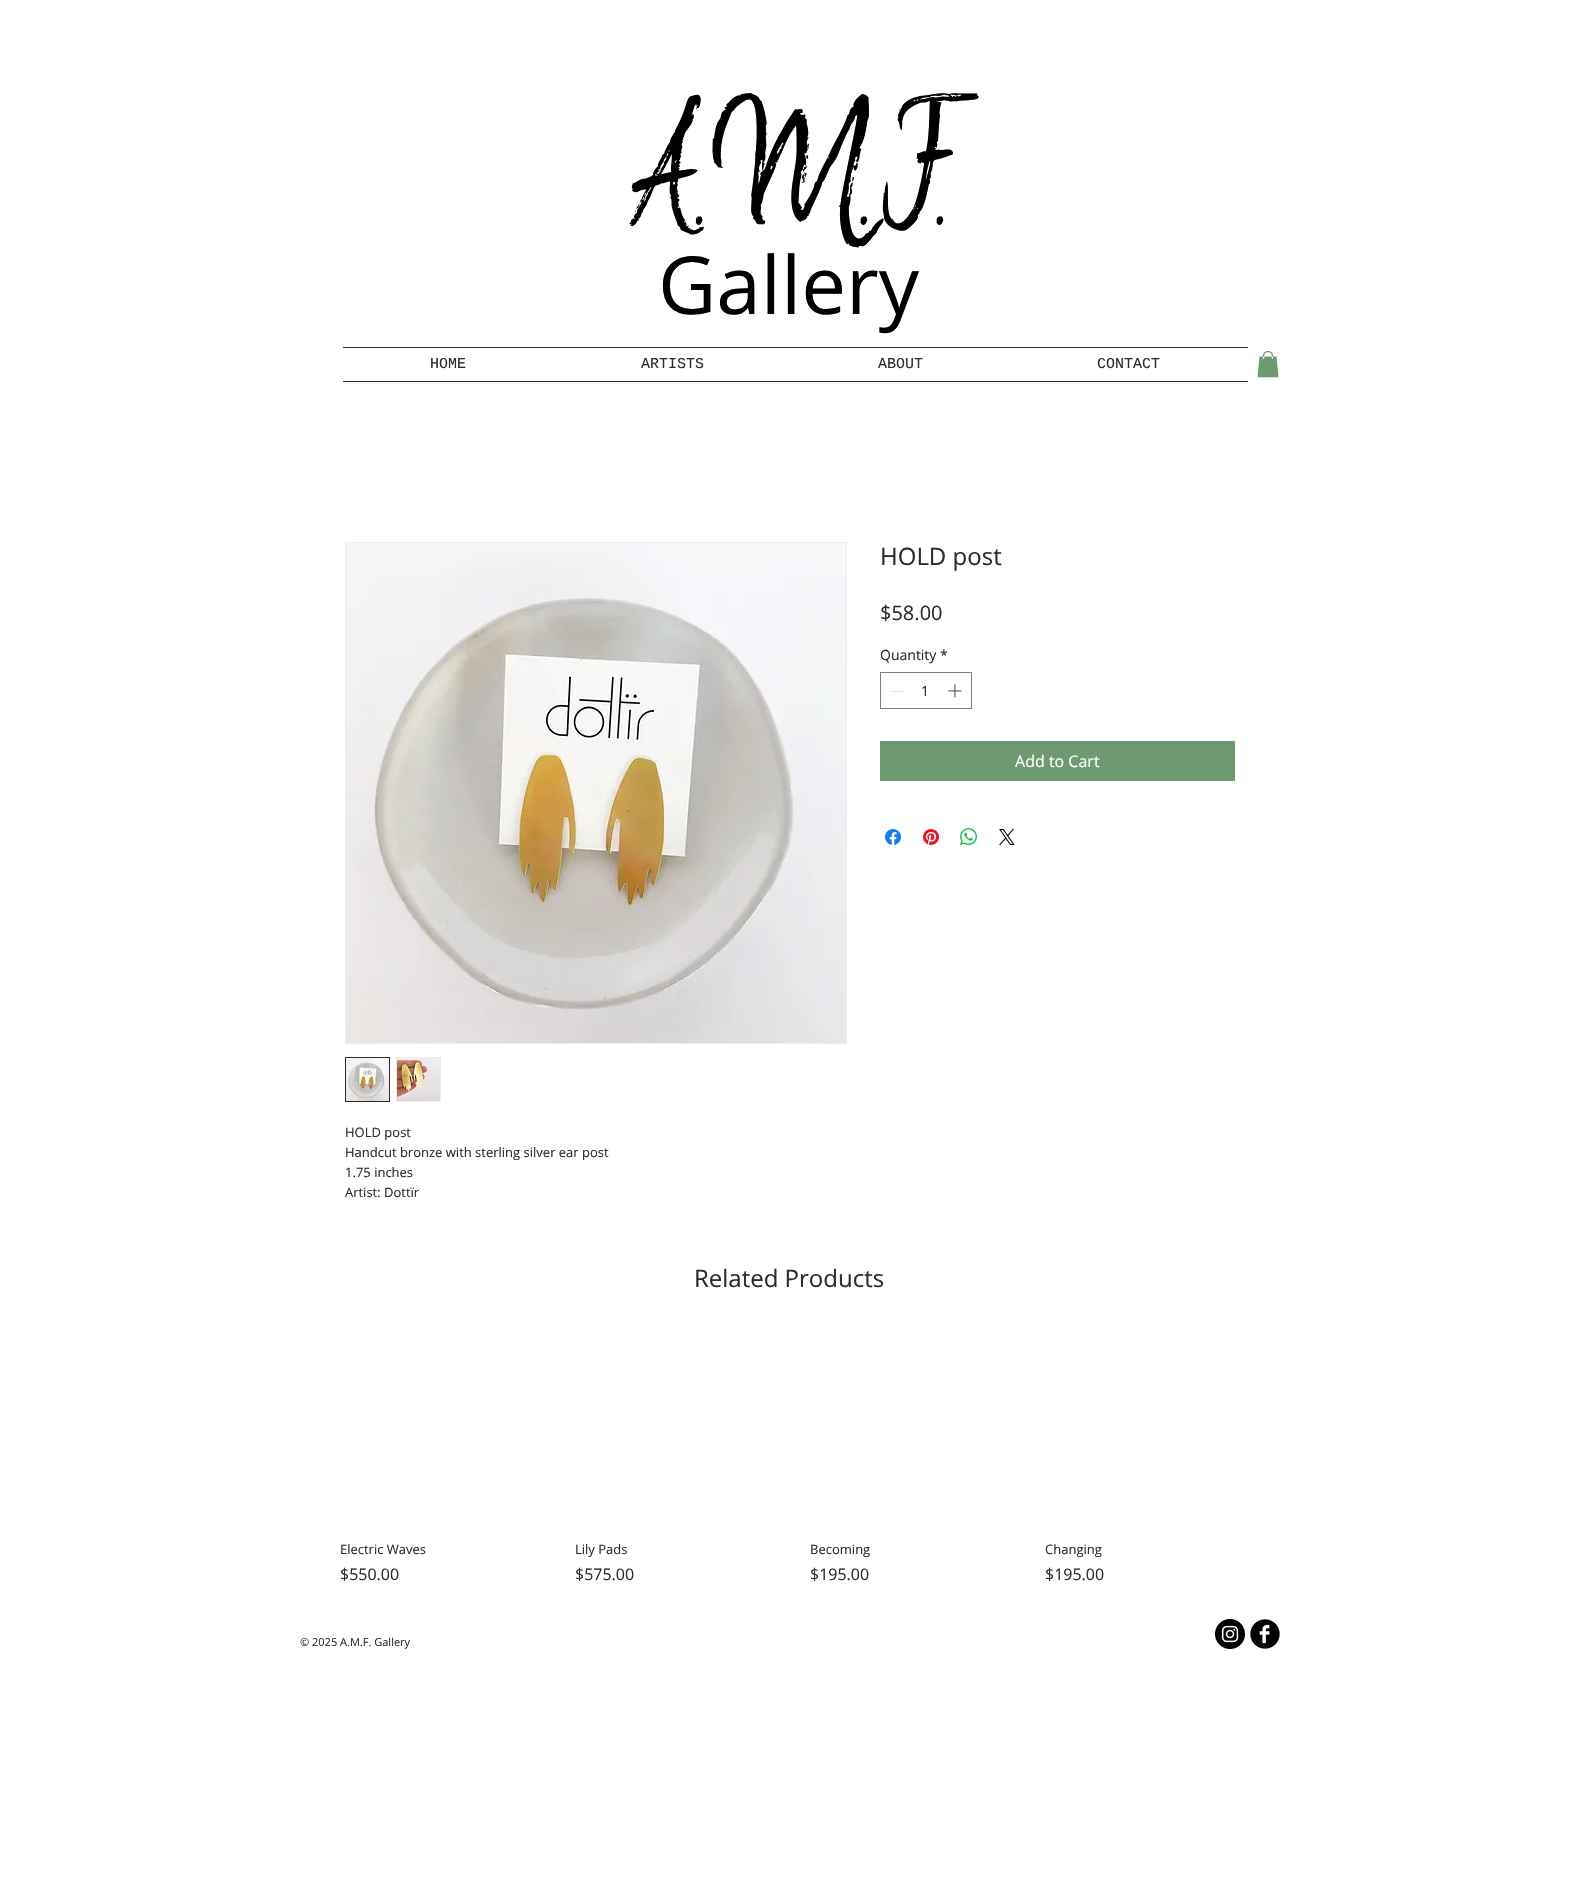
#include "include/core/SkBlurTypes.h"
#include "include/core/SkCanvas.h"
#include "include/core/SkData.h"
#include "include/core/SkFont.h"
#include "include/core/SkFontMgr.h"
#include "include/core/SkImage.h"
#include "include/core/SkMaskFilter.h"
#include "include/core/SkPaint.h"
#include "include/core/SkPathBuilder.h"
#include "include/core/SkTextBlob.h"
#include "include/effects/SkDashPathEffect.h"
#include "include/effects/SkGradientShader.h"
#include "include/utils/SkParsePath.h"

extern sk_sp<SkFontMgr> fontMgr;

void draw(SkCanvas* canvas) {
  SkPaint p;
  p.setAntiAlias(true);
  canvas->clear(SK_ColorWHITE);
  p.setColor(SkColorSetRGB(44, 44, 43));
  canvas->drawRect(SkRect::MakeLTRB(343, 347, 1248, 348), p);
  canvas->drawRect(SkRect::MakeLTRB(343, 381, 1248, 382), p);
  canvas->drawImageRect(SkImages::DeferredFromEncodedData(SkData::MakeFromFileName("images/1.png")), SkRect::MakeLTRB(1257, 351, 1279, 378), SkSamplingOptions());
  p.setStyle(SkPaint::kStroke_Style);
  p.setStrokeWidth(1);
  p.setColor(SkColorSetRGB(128, 128, 128));
  canvas->drawRect(SkRect::MakeLTRB(880.5f, 672.5f, 971.5f, 708.5f), p);
  p.setStyle(SkPaint::kFill_Style);
  p.setColor(SkColorSetRGB(227, 227, 227));
  canvas->drawRect(SkRect::MakeLTRB(892, 691, 905, 692), p);
  canvas->drawImageRect(SkImages::DeferredFromEncodedData(SkData::MakeFromFileName("images/2.png")), SkRect::MakeLTRB(948, 684, 962, 698), SkSamplingOptions());
  p.setColor(SkColorSetRGB(111, 153, 113));
  canvas->drawRect(SkRect::MakeLTRB(880, 741, 1235, 781), p);
  canvas->drawImageRect(SkImages::DeferredFromEncodedData(SkData::MakeFromFileName("images/3.png")), SkRect::MakeLTRB(885, 829, 901, 845), SkSamplingOptions());
  canvas->drawImageRect(SkImages::DeferredFromEncodedData(SkData::MakeFromFileName("images/4.png")), SkRect::MakeLTRB(923, 829, 939, 845), SkSamplingOptions());
  canvas->drawImageRect(SkImages::DeferredFromEncodedData(SkData::MakeFromFileName("images/5.png")), SkRect::MakeLTRB(960, 828, 977, 845), SkSamplingOptions());
  canvas->drawImageRect(SkImages::DeferredFromEncodedData(SkData::MakeFromFileName("images/6.png")), SkRect::MakeLTRB(999, 829, 1015, 845), SkSamplingOptions());
  p.setStyle(SkPaint::kStroke_Style);
  p.setColor(SkColorSetRGB(237, 237, 236));
  canvas->drawRect(SkRect::MakeLTRB(345.5f, 542.5f, 846.5f, 1043.5f), p);
  canvas->drawImageRect(SkImages::DeferredFromEncodedData(SkData::MakeFromFileName("images/7.png")), SkRect::MakeLTRB(346, 543, 846, 1043), SkSamplingOptions());
  p.setColor(SkColorSetRGB(44, 44, 43));
  canvas->drawRect(SkRect::MakeLTRB(345.5f, 1057.5f, 389.5f, 1101.5f), p);
  canvas->drawImageRect(SkImages::DeferredFromEncodedData(SkData::MakeFromFileName("images/8.png")), SkRect::MakeLTRB(346, 1058, 389, 1101), SkSamplingOptions());
  p.setColor(SkColorSetRGB(237, 237, 236));
  canvas->drawRect(SkRect::MakeLTRB(396.5f, 1057.5f, 440.5f, 1101.5f), p);
  canvas->drawImageRect(SkImages::DeferredFromEncodedData(SkData::MakeFromFileName("images/9.png")), SkRect::MakeLTRB(397, 1058, 440, 1101), SkSamplingOptions());
  canvas->drawImageRect(SkImages::DeferredFromEncodedData(SkData::MakeFromFileName("images/10.png")), SkRect::MakeLTRB(1215, 1619, 1245, 1649), SkSamplingOptions());
  canvas->drawImageRect(SkImages::DeferredFromEncodedData(SkData::MakeFromFileName("images/11.png")), SkRect::MakeLTRB(1250, 1619, 1280, 1649), SkSamplingOptions());
  SkFont font1(fontMgr->matchFamilyStyle("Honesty", SkFontStyle::Normal()), 176);
  font1.setSubpixel(true);
  p.setStyle(SkPaint::kFill_Style);
  p.setColor(SK_ColorBLACK);
  canvas->drawString("A.M.F.", 629, 224, font1, p);
  SkFont font2(fontMgr->matchFamilyStyle("Open Sans", SkFontStyle::Normal()), 80);
  font2.setSubpixel(true);
  canvas->drawString("Gallery", 658, 314, font2, p);
  SkFont font3(fontMgr->matchFamilyStyle("Liberation Mono", SkFontStyle::Normal()), 15);
  font3.setSubpixel(true);
  p.setColor(SkColorSetRGB(44, 44, 43));
  canvas->drawString("HOME", 430, 368, font3, p);
  canvas->drawString("ARTISTS", 641, 368, font3, p);
  canvas->drawString("ABOUT", 878, 368, font3, p);
  canvas->drawString("CONTACT", 1097, 368, font3, p);
  SkFont font4(fontMgr->matchFamilyStyle("Open Sans", SkFontStyle::Normal()), 24);
  font4.setSubpixel(true);
  canvas->drawString("HOLD post", 880, 565, font4, p);
  SkFont font5(fontMgr->matchFamilyStyle("Open Sans", SkFontStyle::Normal()), 20);
  font5.setSubpixel(true);
  canvas->drawString("$58.00", 880, 620, font5, p);
  SkFont font6(fontMgr->matchFamilyStyle("Open Sans", SkFontStyle::Normal()), 14);
  font6.setSubpixel(true);
  canvas->drawString("Quantity", 880, 660, font6, p);
  canvas->drawString("*", 940, 660, font6, p);
  canvas->drawString("1", 921, 696, font6, p);
  SkFont font7(fontMgr->matchFamilyStyle("Open Sans", SkFontStyle::Normal()), 16);
  font7.setSubpixel(true);
  p.setColor(SK_ColorWHITE);
  canvas->drawString("Add to Cart", 1015, 767, font7, p);
  SkFont font8(fontMgr->matchFamilyStyle("Open Sans", SkFontStyle::Normal()), 13);
  font8.setSubpixel(true);
  p.setColor(SkColorSetRGB(44, 44, 43));
  canvas->drawString("HOLD post", 345, 1137, font8, p);
  canvas->drawString("Handcut bronze with sterling silver ear post", 345, 1157, font8, p);
  canvas->drawString("1.75 inches", 345, 1177, font8, p);
  canvas->drawString("Artist: Dottïr", 345, 1197, font8, p);
  canvas->drawString("Related Products", 694, 1287, font4, p);
  canvas->drawString("Electric Waves", 340, 1554, font8, p);
  canvas->drawString("$550.00", 340, 1580, font7, p);
  canvas->drawString("Lily Pads", 575, 1554, font8, p);
  canvas->drawString("$575.00", 575, 1580, font7, p);
  canvas->drawString("Becoming", 810, 1554, font8, p);
  canvas->drawString("$195.00", 810, 1580, font7, p);
  canvas->drawString("Changing", 1045, 1554, font8, p);
  canvas->drawString("$195.00", 1045, 1580, font7, p);
  SkFont font9(fontMgr->matchFamilyStyle("Open Sans", SkFontStyle::Normal()), 11);
  font9.setSubpixel(true);
  canvas->drawString("© 2025 A.M.F. Gallery", 300, 1646, font9, p);
}
